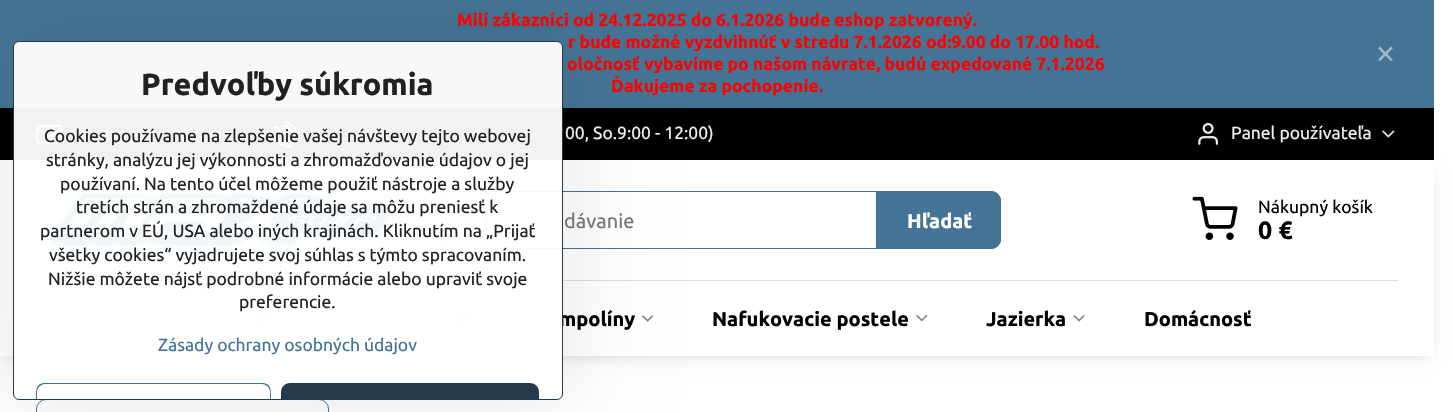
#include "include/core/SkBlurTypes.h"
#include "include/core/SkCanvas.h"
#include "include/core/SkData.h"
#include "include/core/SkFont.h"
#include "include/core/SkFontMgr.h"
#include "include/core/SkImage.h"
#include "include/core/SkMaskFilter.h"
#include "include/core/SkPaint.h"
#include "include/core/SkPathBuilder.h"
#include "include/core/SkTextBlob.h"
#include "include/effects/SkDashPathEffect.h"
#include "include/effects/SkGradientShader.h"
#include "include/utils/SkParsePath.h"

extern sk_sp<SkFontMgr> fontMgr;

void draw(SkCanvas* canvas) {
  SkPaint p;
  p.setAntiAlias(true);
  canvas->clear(SK_ColorWHITE);
  p.setColor(SkColorSetRGB(68, 116, 149));
  canvas->drawRect(SkRect::MakeLTRB(0, 0, 1434, 108), p);
  p.setColor(SK_ColorBLACK);
  canvas->drawRect(SkRect::MakeLTRB(0, 108, 1434, 160), p);
  canvas->drawImageRect(SkImages::DeferredFromEncodedData(SkData::MakeFromFileName("images/1.png")), SkRect::MakeLTRB(36, 124, 63, 144), SkSamplingOptions());
  canvas->drawImageRect(SkImages::DeferredFromEncodedData(SkData::MakeFromFileName("images/2.png")), SkRect::MakeLTRB(271, 121, 298, 148), SkSamplingOptions());
  p.setColor(SkColorSetARGB(38, 0, 0, 20));
  p.setMaskFilter(SkMaskFilter::MakeBlur(kNormal_SkBlurStyle, 7.5f));
  canvas->drawRect(SkRect::MakeLTRB(5, 170, 1429, 356), p);
  p.setMaskFilter(nullptr);
  p.setColor(SK_ColorWHITE);
  canvas->drawRect(SkRect::MakeLTRB(0, 160, 1434, 356), p);
  canvas->drawImageRect(SkImages::DeferredFromEncodedData(SkData::MakeFromFileName("images/5.png")), SkRect::MakeLTRB(48, 189, 395, 251), SkSamplingOptions());
  p.setStyle(SkPaint::kStroke_Style);
  p.setStrokeWidth(1);
  p.setColor(SkColorSetRGB(68, 116, 149));
  canvas->drawRoundRect(SkRect::MakeLTRB(441.5f, 191.5f, 1000.5f, 248.5f), 9.5f, 9.5f, p);
  canvas->drawImageRect(SkImages::DeferredFromEncodedData(SkData::MakeFromFileName("images/6.png")), SkRect::MakeLTRB(465, 207, 490, 233), SkSamplingOptions());
  p.setStyle(SkPaint::kFill_Style);
  p.setColor(SkColorSetRGB(221, 221, 221));
  canvas->drawRect(SkRect::MakeLTRB(36, 280, 1398, 281), p);
  canvas->drawImageRect(SkImages::DeferredFromEncodedData(SkData::MakeFromFileName("images/8.png")), SkRect::MakeLTRB(258, 315, 270, 322), SkSamplingOptions());
  canvas->drawImageRect(SkImages::DeferredFromEncodedData(SkData::MakeFromFileName("images/9.png")), SkRect::MakeLTRB(456, 315, 468, 322), SkSamplingOptions());
  canvas->drawImageRect(SkImages::DeferredFromEncodedData(SkData::MakeFromFileName("images/10.png")), SkRect::MakeLTRB(642, 315, 654, 322), SkSamplingOptions());
  p.setColor(SkColorSetRGB(252, 255, 253));
  canvas->drawRoundRect(SkRect::MakeLTRB(36.5f, 399.5f, 328.5f, 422.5f), 9.5f, 9.5f, p);
  p.setStyle(SkPaint::kStroke_Style);
  p.setColor(SkColorSetRGB(68, 116, 149));
  canvas->drawRoundRect(SkRect::MakeLTRB(36.5f, 399.5f, 328.5f, 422.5f), 9.5f, 9.5f, p);
  canvas->save();
  canvas->clipPath(SkPathBuilder(SkPathFillType::kEvenOdd).moveTo(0, 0).lineTo(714, 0).lineTo(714, 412).lineTo(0, 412).close().moveTo(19, 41).lineTo(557, 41).cubicTo(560.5f, 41, 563, 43.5f, 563, 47).lineTo(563, 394).cubicTo(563, 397.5f, 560.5f, 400, 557, 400).lineTo(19, 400).cubicTo(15.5f, 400, 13, 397.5f, 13, 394).lineTo(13, 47).cubicTo(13, 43.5f, 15.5f, 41, 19, 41).close().detach(), true);
  p.setStyle(SkPaint::kFill_Style);
  p.setColor(SkColorSetARGB(26, 0, 0, 0));
  p.setMaskFilter(SkMaskFilter::MakeBlur(kNormal_SkBlurStyle, 50));
  canvas->drawRoundRect(SkRect::MakeLTRB(13, 41, 563, 400), 6, 6, p);
  p.setMaskFilter(nullptr);
  canvas->restore();
  canvas->drawImageRect(SkImages::DeferredFromEncodedData(SkData::MakeFromFileName("images/3.png")), SkRect::MakeLTRB(1198, 123, 1218, 145), SkSamplingOptions());
  canvas->drawImageRect(SkImages::DeferredFromEncodedData(SkData::MakeFromFileName("images/4.png")), SkRect::MakeLTRB(1382, 130, 1395, 138), SkSamplingOptions());
  p.setColor(SkColorSetRGB(68, 116, 149));
  canvas->drawPath(SkPathBuilder().moveTo(876, 191).lineTo(991, 191).cubicTo(996.5f, 191, 1001, 195.5f, 1001, 201).lineTo(1001, 239).cubicTo(1001, 244.5f, 996.5f, 249, 991, 249).lineTo(876, 249).close().detach(), p);
  canvas->drawImageRect(SkImages::DeferredFromEncodedData(SkData::MakeFromFileName("images/7.png")), SkRect::MakeLTRB(1192, 196, 1238, 240), SkSamplingOptions());
  canvas->drawImageRect(SkImages::DeferredFromEncodedData(SkData::MakeFromFileName("images/11.png")), SkRect::MakeLTRB(916, 315, 928, 322), SkSamplingOptions());
  canvas->drawImageRect(SkImages::DeferredFromEncodedData(SkData::MakeFromFileName("images/12.png")), SkRect::MakeLTRB(1073, 315, 1085, 322), SkSamplingOptions());
  SkFont font1(fontMgr->matchFamilyStyle("Ubuntu", SkFontStyle::Bold()), 17.5f);
  font1.setSubpixel(true);
  p.setColor(SkColorSetRGB(255, 0, 0));
  canvas->drawString("Milí zákazníci od 24.12.2025 do 6.1.2026 bude eshop zatvorený.", 457, 26, font1, p);
  canvas->drawString("r bude možné vyzdvihnúť v stredu 7.1.2026 od:9.00 do 17.00 hod.", 568, 48, font1, p);
  canvas->drawString("oločnosť vybavíme po našom návrate, budú expedované 7.1.2026", 567, 70, font1, p);
  canvas->drawString("Ďakujeme za pochopenie.", 611, 92, font1, p);
  SkFont font2(fontMgr->matchFamilyStyle("DejaVu Sans", SkFontStyle::Normal()), 25);
  font2.setSubpixel(true);
  p.setColor(SkColorSetRGB(162, 186, 202));
  canvas->drawString("✕", 1375, 63, font2, p);
  SkFont font3(fontMgr->matchFamilyStyle("Ubuntu", SkFontStyle::Normal()), 17.5f);
  font3.setSubpixel(true);
  p.setColor(SkColorSetRGB(238, 238, 238));
  canvas->drawString("00, So.9:00 - 12:00)", 565, 139, font3, p);
  canvas->drawString("Panel používateľa", 1231, 139, font3, p);
  SkFont font4(fontMgr->matchFamilyStyle("Ubuntu", SkFontStyle::Normal()), 20);
  font4.setSubpixel(true);
  p.setColor(SkColorSetRGB(117, 117, 117));
  canvas->drawString("dávanie", 564, 228, font4, p);
  SkFont font5(fontMgr->matchFamilyStyle("Ubuntu", SkFontStyle::Bold()), 20);
  font5.setSubpixel(true);
  p.setColor(SK_ColorWHITE);
  canvas->drawString("Hľadať", 907, 228, font5, p);
  p.setColor(SK_ColorBLACK);
  canvas->drawString("Nákupný košík", 1258, 213, font3, p);
  SkFont font6(fontMgr->matchFamilyStyle("Ubuntu", SkFontStyle::Bold()), 25);
  font6.setSubpixel(true);
  canvas->drawString("0 €", 1258, 239, font6, p);
  canvas->drawString("mpolíny", 559, 326, font5, p);
  p.setColor(SkColorSetARGB(242, 255, 255, 255));
  canvas->drawRoundRect(SkRect::MakeLTRB(13.5f, 41.5f, 562.5f, 399.5f), 5.5f, 5.5f, p);
  p.setStyle(SkPaint::kStroke_Style);
  p.setColor(SkColorSetRGB(34, 58, 74));
  canvas->drawRoundRect(SkRect::MakeLTRB(13.5f, 41.5f, 562.5f, 399.5f), 5.5f, 5.5f, p);
  p.setStyle(SkPaint::kFill_Style);
  p.setColor(SkColorSetRGB(68, 116, 149));
  canvas->drawPath(SkPathBuilder().moveTo(45, 383).cubicTo(35, 383, 36, 392, 36, 399).lineTo(37, 399).lineTo(37, 392).cubicTo(37, 388, 41, 384, 45, 384).lineTo(262, 384).cubicTo(266, 384, 270, 388, 270, 392).lineTo(270, 399).lineTo(271, 399).cubicTo(271, 392, 272, 383, 262, 383).close().detach(), p);
  p.setColor(SkColorSetRGB(34, 58, 74));
  canvas->drawPath(SkPathBuilder().moveTo(290, 383).lineTo(530, 383).cubicTo(535, 383, 539, 387, 539, 392).lineTo(539, 399).lineTo(281, 399).lineTo(281, 392).cubicTo(281, 387, 285, 383, 290, 383).close().detach(), p);
  p.setColor(SkColorSetRGB(68, 116, 149));
  canvas->drawString("Zásady ochrany osobných údajov", 158, 351, font3, p);
  p.setColor(SkColorSetRGB(32, 33, 35));
  canvas->drawString("preferencie.", 239, 308, font3, p);
  canvas->drawString("Nižšie môžete nájsť podrobné informácie alebo upraviť svoje", 48, 285, font3, p);
  canvas->drawString("všetky cookies“ vyjadrujete svoj súhlas s týmto spracovaním.", 49, 261, font3, p);
  canvas->drawString("partnerom v EÚ, USA alebo iných krajinách. Kliknutím na „Prijať", 40, 237, font3, p);
  canvas->drawString("tretích strán a zhromaždené údaje sa môžu preniesť k", 76, 213, font3, p);
  canvas->drawString("používaní. Na tento účel môžeme použiť nástroje a služby", 60, 190, font3, p);
  canvas->drawString("stránky, analýzu jej výkonnosti a zhromažďovanie údajov o jej", 46, 166, font3, p);
  canvas->drawString("Cookies používame na zlepšenie vašej návštevy tejto webovej", 44, 142, font3, p);
  SkFont font7(fontMgr->matchFamilyStyle("Ubuntu", SkFontStyle::Bold()), 30.6f);
  font7.setSubpixel(true);
  canvas->drawString("Predvoľby súkromia", 141, 95, font7, p);
  p.setColor(SK_ColorBLACK);
  canvas->drawString("Nafukovacie postele", 712, 326, font5, p);
  canvas->drawString("Jazierka", 986, 326, font5, p);
  canvas->drawString("Domácnosť", 1144, 326, font5, p);
}
